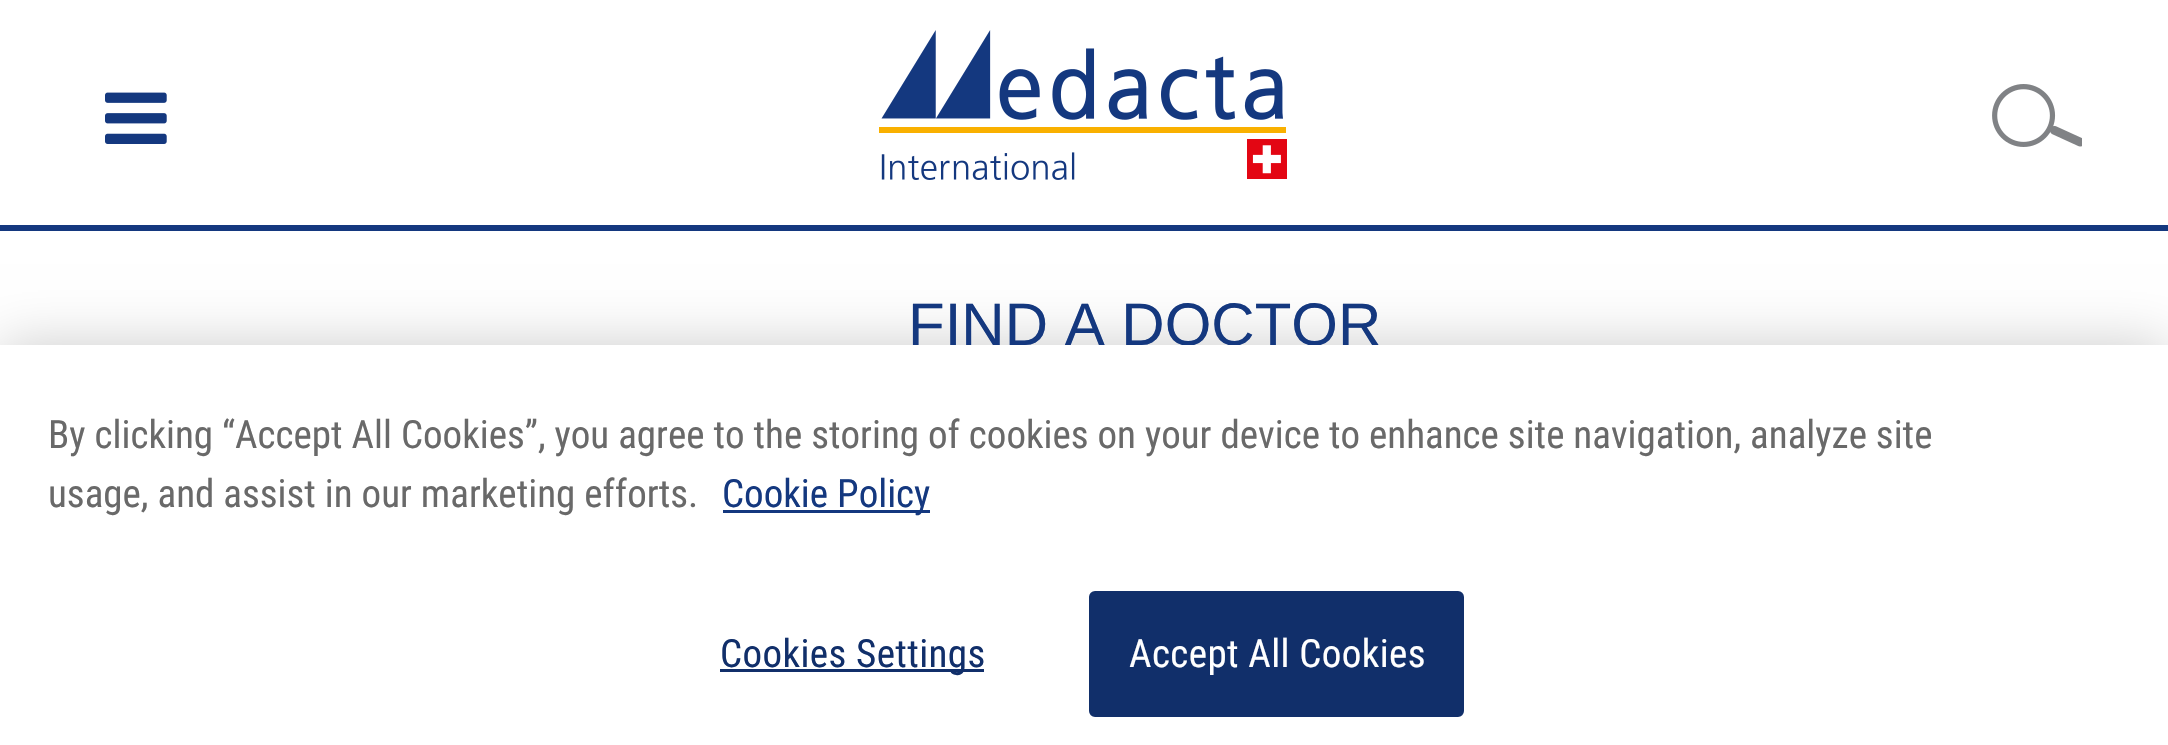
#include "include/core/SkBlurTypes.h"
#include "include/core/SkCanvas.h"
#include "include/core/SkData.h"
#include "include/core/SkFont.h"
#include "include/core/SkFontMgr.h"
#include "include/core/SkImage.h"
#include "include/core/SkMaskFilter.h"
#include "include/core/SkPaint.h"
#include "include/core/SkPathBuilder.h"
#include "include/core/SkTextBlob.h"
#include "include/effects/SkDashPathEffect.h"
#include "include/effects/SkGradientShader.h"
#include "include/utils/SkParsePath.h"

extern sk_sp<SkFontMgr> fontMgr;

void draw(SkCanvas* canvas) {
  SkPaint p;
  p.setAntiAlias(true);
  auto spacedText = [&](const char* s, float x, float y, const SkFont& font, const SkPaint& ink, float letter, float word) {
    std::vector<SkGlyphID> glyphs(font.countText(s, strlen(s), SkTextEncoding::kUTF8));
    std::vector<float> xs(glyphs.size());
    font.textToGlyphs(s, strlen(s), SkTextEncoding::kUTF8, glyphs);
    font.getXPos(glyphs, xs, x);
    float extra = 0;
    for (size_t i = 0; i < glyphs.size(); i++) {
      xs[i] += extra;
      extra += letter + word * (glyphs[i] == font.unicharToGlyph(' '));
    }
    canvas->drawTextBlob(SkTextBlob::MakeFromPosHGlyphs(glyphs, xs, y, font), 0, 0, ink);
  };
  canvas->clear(SK_ColorWHITE);
  p.setColor(SkColorSetRGB(20, 56, 127));
  canvas->drawRect(SkRect::MakeLTRB(0, 225, 2168, 231), p);
  canvas->drawImageRect(SkImages::DeferredFromEncodedData(SkData::MakeFromFileName("images/1.png")), SkRect::MakeLTRB(105, 92, 167, 144), SkSamplingOptions());
  canvas->drawImageRect(SkImages::DeferredFromEncodedData(SkData::MakeFromFileName("images/2.png")), SkRect::MakeLTRB(879, 30, 1287, 180), SkSamplingOptions());
  canvas->drawImageRect(SkImages::DeferredFromEncodedData(SkData::MakeFromFileName("images/3.png")), SkRect::MakeLTRB(1992, 84, 2082, 147), SkSamplingOptions());
  p.setColor(SkColorSetARGB(51, 0, 0, 0));
  p.setMaskFilter(SkMaskFilter::MakeBlur(kNormal_SkBlurStyle, 27));
  canvas->drawRect(SkRect::MakeLTRB(0, 345, 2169, 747), p);
  p.setMaskFilter(nullptr);
  SkFont font1(fontMgr->matchFamilyStyle("Liberation Sans", SkFontStyle::Normal()), 60);
  font1.setSubpixel(true);
  p.setColor(SkColorSetRGB(20, 56, 127));
  canvas->drawString("FIND A DOCTOR", 908, 345, font1, p);
  p.setColor(SK_ColorWHITE);
  canvas->drawRect(SkRect::MakeLTRB(0, 345, 2168, 745), p);
  SkFont font2(fontMgr->matchFamilyStyle("Roboto Condensed", SkFontStyle::Normal()), 39);
  font2.setSubpixel(true);
  p.setColor(SkColorSetRGB(105, 105, 105));
  canvas->drawString("By clicking “Accept All Cookies”, you agree to the storing of cookies on your device to enhance site navigation, analyze site", 48, 448, font2, p);
  canvas->drawString("usage, and assist in our marketing efforts.", 48, 507, font2, p);
  p.setColor(SkColorSetRGB(20, 56, 127));
  canvas->drawRect(SkRect::MakeLTRB(723, 510, 930, 513), p);
  canvas->drawString("Cookie Policy", 722, 507, font2, p);
  p.setColor(SkColorSetRGB(17, 47, 106));
  canvas->drawRect(SkRect::MakeLTRB(720, 669, 984, 672), p);
  spacedText("Cookies Settings", 720, 667, font2, p, 0.4f, 0);
  canvas->drawRoundRect(SkRect::MakeLTRB(1090.5f, 592.5f, 1462.5f, 715.5f), 4.5f, 4.5f, p);
  p.setStyle(SkPaint::kStroke_Style);
  p.setStrokeWidth(3);
  canvas->drawRoundRect(SkRect::MakeLTRB(1090.5f, 592.5f, 1462.5f, 715.5f), 4.5f, 4.5f, p);
  p.setStyle(SkPaint::kFill_Style);
  p.setColor(SK_ColorWHITE);
  spacedText("Accept All Cookies", 1129, 667, font2, p, 0.4f, 0);
}
